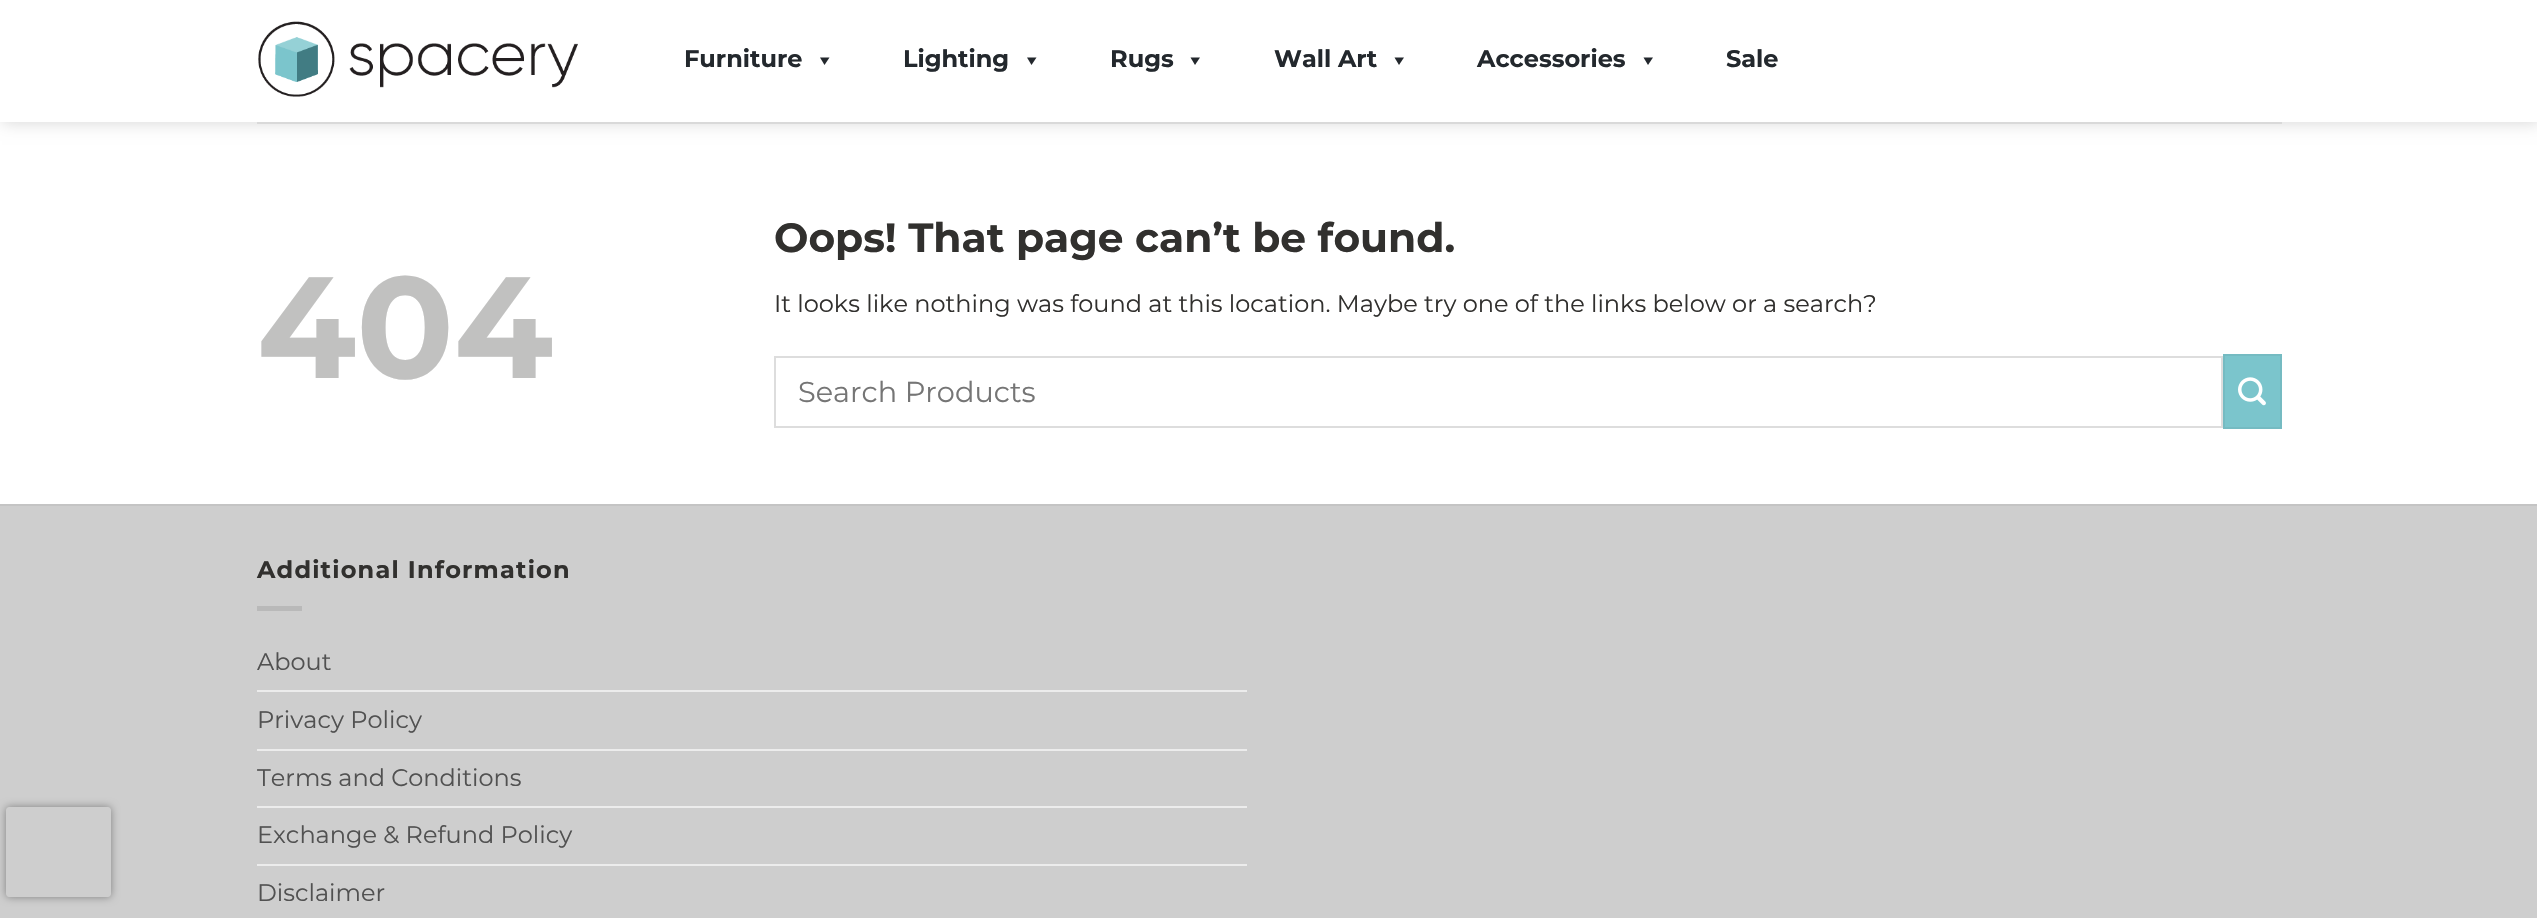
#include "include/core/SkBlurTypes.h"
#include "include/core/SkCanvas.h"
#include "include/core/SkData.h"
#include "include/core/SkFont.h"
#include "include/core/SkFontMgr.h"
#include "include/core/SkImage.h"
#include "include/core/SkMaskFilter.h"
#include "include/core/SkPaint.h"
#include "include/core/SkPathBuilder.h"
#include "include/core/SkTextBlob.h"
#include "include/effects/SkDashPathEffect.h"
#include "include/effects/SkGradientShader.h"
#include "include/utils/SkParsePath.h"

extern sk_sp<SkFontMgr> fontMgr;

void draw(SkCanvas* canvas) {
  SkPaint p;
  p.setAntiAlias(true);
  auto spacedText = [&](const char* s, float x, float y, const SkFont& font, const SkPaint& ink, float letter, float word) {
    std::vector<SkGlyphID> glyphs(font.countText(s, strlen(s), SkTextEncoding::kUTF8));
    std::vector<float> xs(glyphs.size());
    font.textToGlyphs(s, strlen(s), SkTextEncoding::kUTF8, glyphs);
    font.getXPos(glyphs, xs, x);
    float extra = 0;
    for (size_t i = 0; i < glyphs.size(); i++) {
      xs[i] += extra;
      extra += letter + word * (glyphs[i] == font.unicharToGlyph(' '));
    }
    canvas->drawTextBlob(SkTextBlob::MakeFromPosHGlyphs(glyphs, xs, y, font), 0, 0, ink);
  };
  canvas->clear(SK_ColorWHITE);
  p.setColor(SkColorSetRGB(206, 206, 206));
  canvas->drawRect(SkRect::MakeLTRB(0, 506, 2537, 918), p);
  canvas->save();
  canvas->clipPath(SkPathBuilder(SkPathFillType::kEvenOdd).moveTo(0, 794).lineTo(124, 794).lineTo(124, 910).lineTo(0, 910).close().moveTo(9, 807).lineTo(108, 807).cubicTo(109.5f, 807, 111, 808.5f, 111, 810).lineTo(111, 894).cubicTo(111, 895.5f, 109.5f, 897, 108, 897).lineTo(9, 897).cubicTo(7.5f, 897, 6, 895.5f, 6, 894).lineTo(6, 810).cubicTo(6, 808.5f, 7.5f, 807, 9, 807).close().detach(), true);
  p.setColor(SkColorSetRGB(128, 128, 128));
  p.setMaskFilter(SkMaskFilter::MakeBlur(kNormal_SkBlurStyle, 4));
  canvas->drawRoundRect(SkRect::MakeLTRB(6, 807, 111, 897), 3, 3, p);
  p.setMaskFilter(nullptr);
  canvas->restore();
  p.setColor(SkColorSetARGB(38, 0, 0, 0));
  p.setMaskFilter(SkMaskFilter::MakeBlur(kNormal_SkBlurStyle, 7.5f));
  canvas->drawRect(SkRect::MakeLTRB(2, -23, 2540, 123), p);
  p.setMaskFilter(nullptr);
  p.setColor(SK_ColorWHITE);
  canvas->drawRect(SkRect::MakeLTRB(0, 0, 2537, 122), p);
  canvas->drawImageRect(SkImages::DeferredFromEncodedData(SkData::MakeFromFileName("images/1.png")), SkRect::MakeLTRB(258, 21, 578, 97), SkSamplingOptions());
  p.setColor(SkColorSetRGB(35, 40, 45));
  canvas->drawPath(SkPathBuilder().moveTo(829.5f, 57.5f).lineTo(824.5f, 65).lineTo(820, 57.5f).close().detach(), p);
  canvas->drawPath(SkPathBuilder().moveTo(1036.5f, 57.5f).lineTo(1031.5f, 65).lineTo(1027, 57.5f).close().detach(), p);
  canvas->drawPath(SkPathBuilder().moveTo(1200, 57.5f).lineTo(1195, 65).lineTo(1190.5f, 57.5f).close().detach(), p);
  canvas->drawPath(SkPathBuilder().moveTo(1404, 57.5f).lineTo(1399, 65).lineTo(1394.5f, 57.5f).close().detach(), p);
  canvas->drawPath(SkPathBuilder().moveTo(1653, 57.5f).lineTo(1648, 65).lineTo(1643.5f, 57.5f).close().detach(), p);
  p.setColor(SkColorSetRGB(217, 217, 217));
  canvas->drawRect(SkRect::MakeLTRB(257, 122, 2282, 124), p);
  p.setStyle(SkPaint::kStroke_Style);
  p.setStrokeWidth(2);
  p.setColor(SkColorSetRGB(221, 221, 221));
  canvas->drawRect(SkRect::MakeLTRB(775, 357, 2222, 427), p);
  p.setStyle(SkPaint::kFill_Style);
  p.setColor(SkColorSetRGB(123, 197, 204));
  canvas->drawRect(SkRect::MakeLTRB(2224, 355, 2281, 428), p);
  p.setStyle(SkPaint::kStroke_Style);
  p.setColor(SkColorSetRGB(117, 187, 194));
  canvas->drawRect(SkRect::MakeLTRB(2224, 355, 2281, 428), p);
  canvas->drawImageRect(SkImages::DeferredFromEncodedData(SkData::MakeFromFileName("images/2.png")), SkRect::MakeLTRB(2238, 377, 2266, 406), SkSamplingOptions());
  p.setStyle(SkPaint::kFill_Style);
  p.setColor(SkColorSetRGB(196, 196, 196));
  canvas->drawRect(SkRect::MakeLTRB(0, 504, 2537, 506), p);
  p.setColor(SkColorSetRGB(185, 185, 185));
  canvas->drawRect(SkRect::MakeLTRB(257, 606, 302, 611), p);
  p.setColor(SkColorSetRGB(236, 236, 236));
  canvas->drawRect(SkRect::MakeLTRB(257, 690, 1247, 692), p);
  canvas->drawRect(SkRect::MakeLTRB(257, 749, 1247, 751), p);
  canvas->drawRect(SkRect::MakeLTRB(257, 806, 1247, 808), p);
  canvas->drawRect(SkRect::MakeLTRB(257, 864, 1247, 866), p);
  SkFont font1(fontMgr->matchFamilyStyle("Montserrat", SkFontStyle::Bold()), 24);
  font1.setSubpixel(true);
  p.setColor(SkColorSetRGB(35, 40, 45));
  canvas->drawString("Furniture", 684, 67, font1, p);
  canvas->drawString("Lighting", 903, 67, font1, p);
  canvas->drawString("Rugs", 1110, 67, font1, p);
  canvas->drawString("Wall Art", 1274, 67, font1, p);
  canvas->drawString("Accessories", 1477, 67, font1, p);
  canvas->drawString("Sale", 1726, 67, font1, p);
  SkFont font2(fontMgr->matchFamilyStyle("Montserrat", SkFontStyle::Bold()), 144);
  font2.setSubpixel(true);
  p.setColor(SkColorSetRGB(193, 193, 192));
  canvas->drawString("404", 257, 378, font2, p);
  SkFont font3(fontMgr->matchFamilyStyle("Montserrat", SkFontStyle::Bold()), 40.75f);
  font3.setSubpixel(true);
  p.setColor(SkColorSetRGB(49, 48, 46));
  canvas->drawString("Oops! That page can’t be found.", 774, 252, font3, p);
  SkFont font4(fontMgr->matchFamilyStyle("Montserrat", SkFontStyle::Normal()), 24);
  font4.setSubpixel(true);
  canvas->drawString("It looks like nothing was found at this location. Maybe try one of the links below or a search?", 774, 312, font4, p);
  SkFont font5(fontMgr->matchFamilyStyle("Montserrat", SkFontStyle::Normal()), 28.75f);
  font5.setSubpixel(true);
  p.setColor(SkColorSetRGB(117, 117, 117));
  canvas->drawString("Search Products", 798, 402, font5, p);
  p.setColor(SkColorSetRGB(49, 48, 46));
  spacedText("Additional Information", 257, 578, font1, p, 1.2f, 0);
  p.setColor(SkColorSetRGB(81, 81, 81));
  canvas->drawString("About", 257, 670, font4, p);
  canvas->drawString("Privacy Policy", 257, 728, font4, p);
  canvas->drawString("Terms and Conditions", 257, 786, font4, p);
  canvas->drawString("Exchange & Refund Policy", 257, 843, font4, p);
  canvas->drawString("Disclaimer", 257, 901, font4, p);
}
